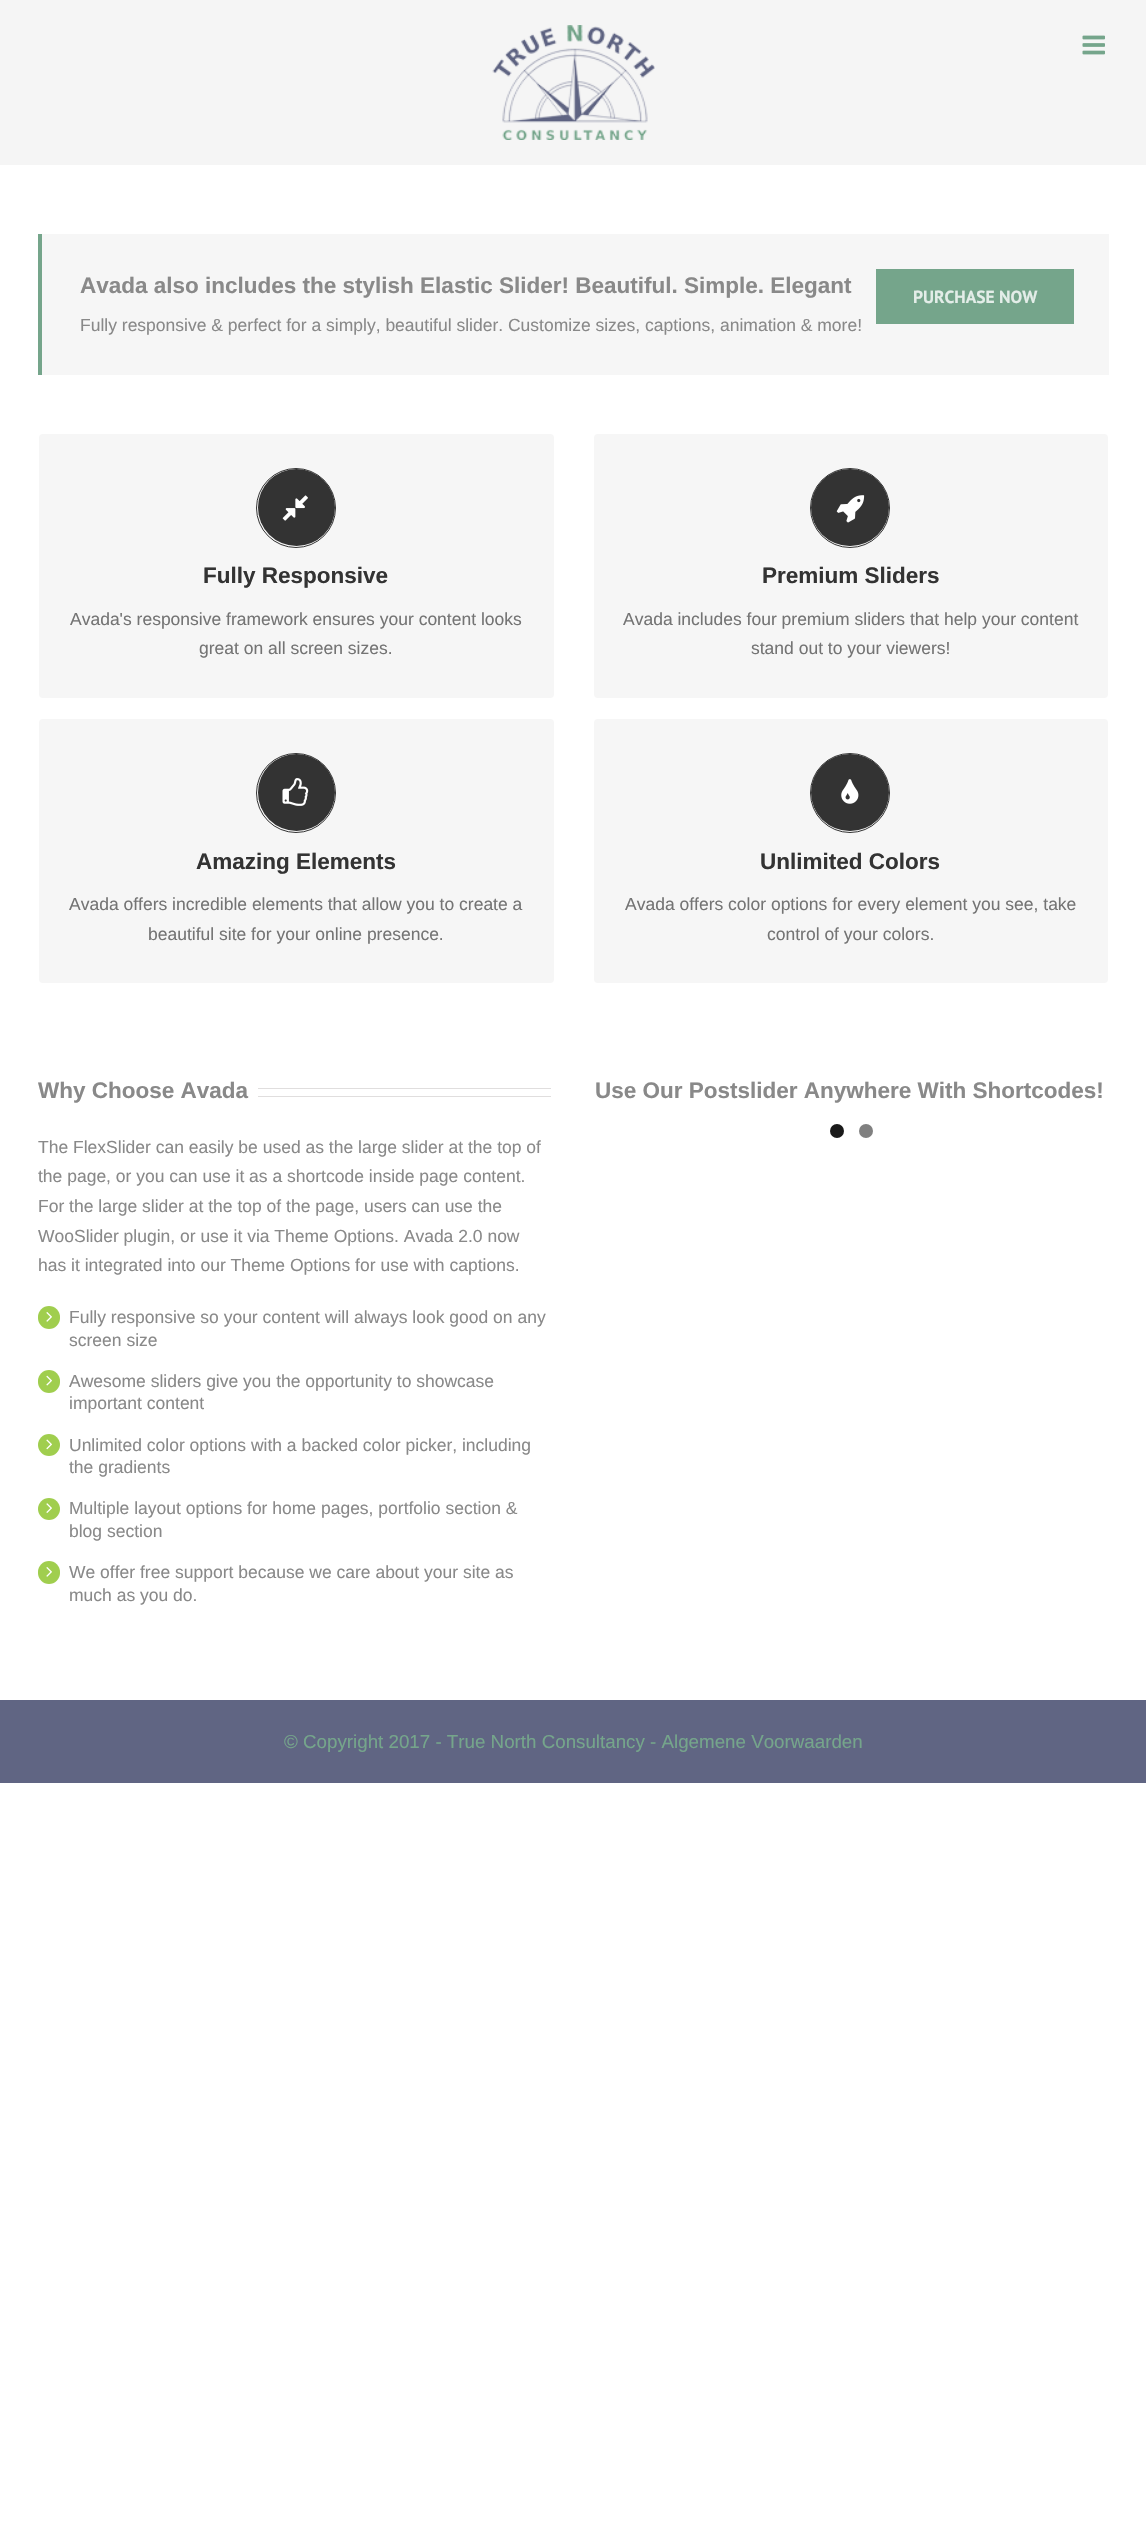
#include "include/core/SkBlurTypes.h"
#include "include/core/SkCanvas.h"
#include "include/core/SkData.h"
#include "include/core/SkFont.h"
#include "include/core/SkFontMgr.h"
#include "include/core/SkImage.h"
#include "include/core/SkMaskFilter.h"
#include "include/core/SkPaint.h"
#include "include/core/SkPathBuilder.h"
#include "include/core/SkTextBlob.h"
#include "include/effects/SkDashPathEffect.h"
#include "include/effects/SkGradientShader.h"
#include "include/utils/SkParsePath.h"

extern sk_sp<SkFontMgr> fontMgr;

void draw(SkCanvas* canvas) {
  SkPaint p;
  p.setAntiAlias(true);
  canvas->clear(SK_ColorWHITE);
  p.setColor(SkColorSetRGB(245, 245, 245));
  canvas->drawRect(SkRect::MakeLTRB(0, 0, 1146, 165), p);
  canvas->drawImageRect(SkImages::DeferredFromEncodedData(SkData::MakeFromFileName("images/1.png")), SkRect::MakeLTRB(492, 25, 655, 140), SkSamplingOptions());
  canvas->drawImageRect(SkImages::DeferredFromEncodedData(SkData::MakeFromFileName("images/2.png")), SkRect::MakeLTRB(1082, 35, 1105, 55), SkSamplingOptions());
  p.setColor(SkColorSetRGB(246, 246, 246));
  canvas->drawRect(SkRect::MakeLTRB(42, 234, 1109, 375), p);
  p.setColor(SkColorSetRGB(117, 165, 139));
  canvas->drawRect(SkRect::MakeLTRB(38, 234, 42, 375), p);
  canvas->drawRect(SkRect::MakeLTRB(876, 269, 1074, 324), p);
  p.setColor(SkColorSetRGB(246, 246, 246));
  canvas->drawRoundRect(SkRect::MakeLTRB(39, 434, 554, 698), 4, 4, p);
  p.setColor(SkColorSetRGB(51, 51, 51));
  canvas->drawCircle(296.5f, 507.5f, 38.5f, p);
  p.setStyle(SkPaint::kStroke_Style);
  p.setStrokeWidth(1);
  canvas->drawCircle(296, 508, 39.5f, p);
  canvas->drawImageRect(SkImages::DeferredFromEncodedData(SkData::MakeFromFileName("images/3.png")), SkRect::MakeLTRB(282, 495, 308, 521), SkSamplingOptions());
  p.setStyle(SkPaint::kFill_Style);
  p.setColor(SkColorSetRGB(246, 246, 246));
  canvas->drawRoundRect(SkRect::MakeLTRB(594, 434, 1108, 698), 4, 4, p);
  p.setColor(SkColorSetRGB(51, 51, 51));
  canvas->drawRoundRect(SkRect::MakeLTRB(811, 469, 889, 546), 38.5f, 38.5f, p);
  p.setStyle(SkPaint::kStroke_Style);
  canvas->drawCircle(850, 508, 39.5f, p);
  canvas->drawImageRect(SkImages::DeferredFromEncodedData(SkData::MakeFromFileName("images/4.png")), SkRect::MakeLTRB(836, 495, 865, 523), SkSamplingOptions());
  p.setStyle(SkPaint::kFill_Style);
  p.setColor(SkColorSetRGB(246, 246, 246));
  canvas->drawRoundRect(SkRect::MakeLTRB(39, 719, 554, 983), 4, 4, p);
  p.setColor(SkColorSetRGB(51, 51, 51));
  canvas->drawCircle(296.5f, 792.5f, 38.5f, p);
  p.setStyle(SkPaint::kStroke_Style);
  canvas->drawCircle(296, 793, 39.5f, p);
  canvas->drawImageRect(SkImages::DeferredFromEncodedData(SkData::MakeFromFileName("images/5.png")), SkRect::MakeLTRB(282, 778, 309, 806), SkSamplingOptions());
  p.setStyle(SkPaint::kFill_Style);
  p.setColor(SkColorSetRGB(246, 246, 246));
  canvas->drawRoundRect(SkRect::MakeLTRB(594, 719, 1108, 983), 4, 4, p);
  p.setColor(SkColorSetRGB(51, 51, 51));
  canvas->drawRoundRect(SkRect::MakeLTRB(811, 754, 889, 831), 38.5f, 38.5f, p);
  p.setStyle(SkPaint::kStroke_Style);
  canvas->drawCircle(850, 793, 39.5f, p);
  canvas->drawImageRect(SkImages::DeferredFromEncodedData(SkData::MakeFromFileName("images/6.png")), SkRect::MakeLTRB(841, 779, 859, 804), SkSamplingOptions());
  p.setStyle(SkPaint::kFill_Style);
  p.setColor(SkColorSetRGB(224, 222, 222));
  canvas->drawRect(SkRect::MakeLTRB(258, 1088, 551, 1089), p);
  canvas->drawRect(SkRect::MakeLTRB(258, 1096, 551, 1097), p);
  p.setColor(SkColorSetRGB(160, 206, 78));
  canvas->drawRoundRect(SkRect::MakeLTRB(38, 1306, 60, 1329), 11, 11, p);
  canvas->drawImageRect(SkImages::DeferredFromEncodedData(SkData::MakeFromFileName("images/7.png")), SkRect::MakeLTRB(46, 1312, 52, 1322), SkSamplingOptions());
  canvas->drawRoundRect(SkRect::MakeLTRB(38, 1370, 60, 1393), 11, 11, p);
  canvas->drawImageRect(SkImages::DeferredFromEncodedData(SkData::MakeFromFileName("images/8.png")), SkRect::MakeLTRB(46, 1375, 52, 1386), SkSamplingOptions());
  canvas->drawCircle(49, 1445, 11, p);
  canvas->drawImageRect(SkImages::DeferredFromEncodedData(SkData::MakeFromFileName("images/9.png")), SkRect::MakeLTRB(46, 1439, 52, 1450), SkSamplingOptions());
  canvas->drawCircle(49, 1509, 11, p);
  canvas->drawImageRect(SkImages::DeferredFromEncodedData(SkData::MakeFromFileName("images/10.png")), SkRect::MakeLTRB(46, 1503, 52, 1513), SkSamplingOptions());
  canvas->drawRoundRect(SkRect::MakeLTRB(38, 1561, 60, 1584), 11, 11, p);
  canvas->drawImageRect(SkImages::DeferredFromEncodedData(SkData::MakeFromFileName("images/7.png")), SkRect::MakeLTRB(46, 1567, 52, 1577), SkSamplingOptions());
  p.setColor(SkColorSetRGB(26, 26, 26));
  canvas->drawCircle(837, 1131, 7, p);
  p.setColor(SkColorSetRGB(128, 128, 128));
  canvas->drawCircle(866, 1131, 7, p);
  p.setColor(SkColorSetRGB(96, 101, 131));
  canvas->drawRect(SkRect::MakeLTRB(0, 1700, 1146, 1783), p);
  SkFont font1(fontMgr->matchFamilyStyle("Liberation Sans", SkFontStyle::Bold()), 22.5f);
  font1.setSubpixel(true);
  p.setColor(SkColorSetRGB(137, 137, 137));
  canvas->drawString("Avada also includes the stylish Elastic Slider! Beautiful. Simple. Elegant", 80, 293, font1, p);
  SkFont font2(fontMgr->matchFamilyStyle("PT Sans", SkFontStyle::Bold()), 17.5f);
  font2.setSubpixel(true);
  p.setColor(SkColorSetRGB(227, 237, 232));
  canvas->drawString("PURCHASE NOW", 913, 303, font2, p);
  SkFont font3(fontMgr->matchFamilyStyle("Liberation Sans", SkFontStyle::Normal()), 17.5f);
  font3.setSubpixel(true);
  p.setColor(SkColorSetRGB(137, 137, 137));
  canvas->drawString("Fully responsive & perfect for a simply, beautiful slider. Customize sizes, captions, animation & more!", 80, 331, font3, p);
  p.setColor(SkColorSetRGB(51, 51, 51));
  canvas->drawString("Fully Responsive", 203, 583, font1, p);
  p.setColor(SkColorSetRGB(116, 116, 116));
  canvas->drawString("Avada's responsive framework ensures your content looks", 70, 625, font3, p);
  canvas->drawString("great on all screen sizes.", 199, 654, font3, p);
  p.setColor(SkColorSetRGB(51, 51, 51));
  canvas->drawString("Premium Sliders", 762, 583, font1, p);
  p.setColor(SkColorSetRGB(116, 116, 116));
  canvas->drawString("Avada includes four premium sliders that help your content", 623, 625, font3, p);
  canvas->drawString("stand out to your viewers!", 751, 654, font3, p);
  p.setColor(SkColorSetRGB(51, 51, 51));
  canvas->drawString("Amazing Elements", 196, 869, font1, p);
  p.setColor(SkColorSetRGB(116, 116, 116));
  canvas->drawString("Avada offers incredible elements that allow you to create a", 69, 910, font3, p);
  canvas->drawString("beautiful site for your online presence.", 148, 940, font3, p);
  p.setColor(SkColorSetRGB(51, 51, 51));
  canvas->drawString("Unlimited Colors", 760, 869, font1, p);
  p.setColor(SkColorSetRGB(116, 116, 116));
  canvas->drawString("Avada offers color options for every element you see, take", 625, 910, font3, p);
  canvas->drawString("control of your colors.", 767, 940, font3, p);
  p.setColor(SkColorSetRGB(137, 137, 137));
  canvas->drawString("Why Choose Avada", 38, 1098, font1, p);
  canvas->drawString("The FlexSlider can easily be used as the large slider at the top of", 38, 1153, font3, p);
  canvas->drawString("the page, or you can use it as a shortcode inside page content.", 38, 1182, font3, p);
  canvas->drawString("For the large slider at the top of the page, users can use the", 38, 1212, font3, p);
  canvas->drawString("WooSlider plugin, or use it via Theme Options. Avada 2.0 now", 38, 1242, font3, p);
  canvas->drawString("has it integrated into our Theme Options for use with captions.", 38, 1271, font3, p);
  canvas->drawString("Fully responsive so your content will always look good on any", 69, 1323, font3, p);
  canvas->drawString("screen size", 69, 1346, font3, p);
  canvas->drawString("Awesome sliders give you the opportunity to showcase", 69, 1387, font3, p);
  canvas->drawString("important content", 69, 1409, font3, p);
  canvas->drawString("Unlimited color options with a backed color picker, including", 69, 1451, font3, p);
  canvas->drawString("the gradients", 69, 1473, font3, p);
  canvas->drawString("Multiple layout options for home pages, portfolio section &", 69, 1514, font3, p);
  canvas->drawString("blog section", 69, 1537, font3, p);
  canvas->drawString("We offer free support because we care about your site as", 69, 1578, font3, p);
  canvas->drawString("much as you do.", 69, 1601, font3, p);
  canvas->drawString("Use Our Postslider Anywhere With Shortcodes!", 595, 1098, font1, p);
  SkFont font4(fontMgr->matchFamilyStyle("Liberation Sans", SkFontStyle::Normal()), 18.75f);
  font4.setSubpixel(true);
  p.setColor(SkColorSetRGB(117, 165, 139));
  canvas->drawString("© Copyright 2017 - True North Consultancy - Algemene Voorwaarden", 284, 1748, font4, p);
}
